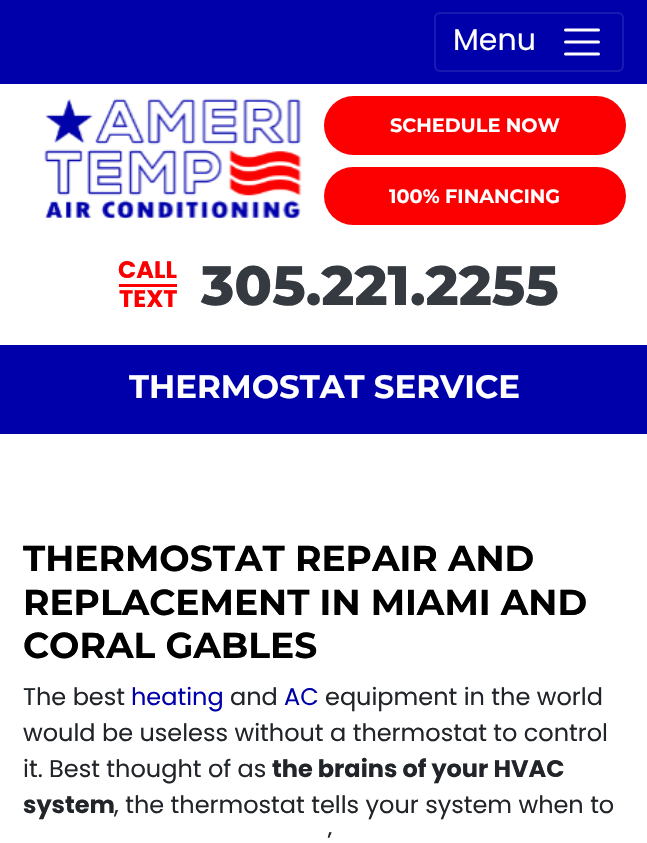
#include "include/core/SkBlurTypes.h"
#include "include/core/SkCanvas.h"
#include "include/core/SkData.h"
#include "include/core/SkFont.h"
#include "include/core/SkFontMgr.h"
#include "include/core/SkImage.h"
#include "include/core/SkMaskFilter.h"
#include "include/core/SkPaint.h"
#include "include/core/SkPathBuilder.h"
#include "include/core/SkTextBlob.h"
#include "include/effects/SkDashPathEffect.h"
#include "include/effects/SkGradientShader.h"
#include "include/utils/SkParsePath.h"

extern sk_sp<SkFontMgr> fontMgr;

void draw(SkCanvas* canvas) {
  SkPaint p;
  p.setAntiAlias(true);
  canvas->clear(SK_ColorWHITE);
  p.setColor(SkColorSetRGB(0, 0, 170));
  canvas->drawRect(SkRect::MakeLTRB(0, 0, 647, 84), p);
  p.setStyle(SkPaint::kStroke_Style);
  p.setStrokeWidth(2);
  p.setColor(SkColorSetRGB(26, 26, 179));
  canvas->drawRoundRect(SkRect::MakeLTRB(435, 13, 623, 71), 5, 5, p);
  p.setStrokeWidth(3);
  p.setStrokeCap(SkPaint::kRound_Cap);
  p.setColor(SK_ColorWHITE);
  canvas->drawPath(SkPathBuilder().moveTo(565.5f, 30).lineTo(598.5f, 30).moveTo(565.5f, 42).lineTo(598.5f, 42).moveTo(565.5f, 54).lineTo(598.5f, 54).detach(), p);
  canvas->drawImageRect(SkImages::DeferredFromEncodedData(SkData::MakeFromFileName("images/1.png")), SkRect::MakeLTRB(44, 98, 302, 220), SkSamplingOptions());
  p.setStyle(SkPaint::kFill_Style);
  p.setColor(SkColorSetRGB(252, 0, 1));
  canvas->drawRoundRect(SkRect::MakeLTRB(324, 96, 626, 155), 29.5f, 29.5f, p);
  canvas->drawRoundRect(SkRect::MakeLTRB(324, 167, 626, 225), 29, 29, p);
  canvas->drawRect(SkRect::MakeLTRB(119, 284, 177, 287), p);
  p.setColor(SkColorSetRGB(0, 0, 170));
  canvas->drawRect(SkRect::MakeLTRB(0, 345, 647, 434), p);
  SkFont font1(fontMgr->matchFamilyStyle("Poppins", SkFontStyle::Normal()), 30);
  font1.setSubpixel(true);
  p.setColor(SK_ColorWHITE);
  canvas->drawString("Menu", 453, 50, font1, p);
  SkFont font2(fontMgr->matchFamilyStyle("Montserrat", SkFontStyle::Bold()), 19.25f);
  font2.setSubpixel(true);
  canvas->drawString("SCHEDULE NOW", 390, 132, font2, p);
  canvas->drawString("100% FINANCING", 389, 203, font2, p);
  SkFont font3(fontMgr->matchFamilyStyle("Poppins", SkFontStyle::Bold()), 24);
  font3.setSubpixel(true);
  p.setColor(SkColorSetRGB(252, 0, 1));
  canvas->drawString("CALL", 118, 278, font3, p);
  canvas->drawString("TEXT", 119, 307, font3, p);
  SkFont font4(fontMgr->matchFamilyStyle("Montserrat", SkFontStyle(800, SkFontStyle::kNormal_Width, SkFontStyle::kUpright_Slant)), 55.25f);
  font4.setSubpixel(true);
  p.setColor(SkColorSetRGB(52, 58, 64));
  canvas->drawString("305.221.2255", 201, 305, font4, p);
  SkFont font5(fontMgr->matchFamilyStyle("Montserrat", SkFontStyle::Bold()), 32.4f);
  font5.setSubpixel(true);
  p.setColor(SK_ColorWHITE);
  canvas->drawString("THERMOSTAT SERVICE", 129, 398, font5, p);
  SkFont font6(fontMgr->matchFamilyStyle("Montserrat", SkFontStyle::Bold()), 36);
  font6.setSubpixel(true);
  p.setColor(SK_ColorBLACK);
  canvas->drawString("THERMOSTAT REPAIR AND", 23, 571, font6, p);
  canvas->drawString("REPLACEMENT IN MIAMI AND", 23, 615, font6, p);
  canvas->drawString("CORAL GABLES", 23, 658, font6, p);
  SkFont font7(fontMgr->matchFamilyStyle("Poppins", SkFontStyle::Normal()), 24);
  font7.setSubpixel(true);
  p.setColor(SkColorSetRGB(33, 37, 41));
  canvas->drawString("The best", 23, 705, font7, p);
  p.setColor(SkColorSetRGB(0, 0, 170));
  canvas->drawString("heating", 131, 705, font7, p);
  p.setColor(SkColorSetRGB(33, 37, 41));
  canvas->drawString("and", 230, 705, font7, p);
  p.setColor(SkColorSetRGB(0, 0, 170));
  canvas->drawString("AC", 284, 705, font7, p);
  p.setColor(SkColorSetRGB(33, 37, 41));
  canvas->drawString("equipment in the world", 325, 705, font7, p);
  canvas->drawString("would be useless without a thermostat to control", 23, 741, font7, p);
  canvas->drawString("it. Best thought of as", 23, 777, font7, p);
  canvas->drawString("the brains of your HVAC", 272, 777, font3, p);
  canvas->drawString("system", 23, 813, font3, p);
  canvas->drawString(", the thermostat tells your system when to", 114, 813, font7, p);
  canvas->drawString("’", 327, 849, font7, p);
}
